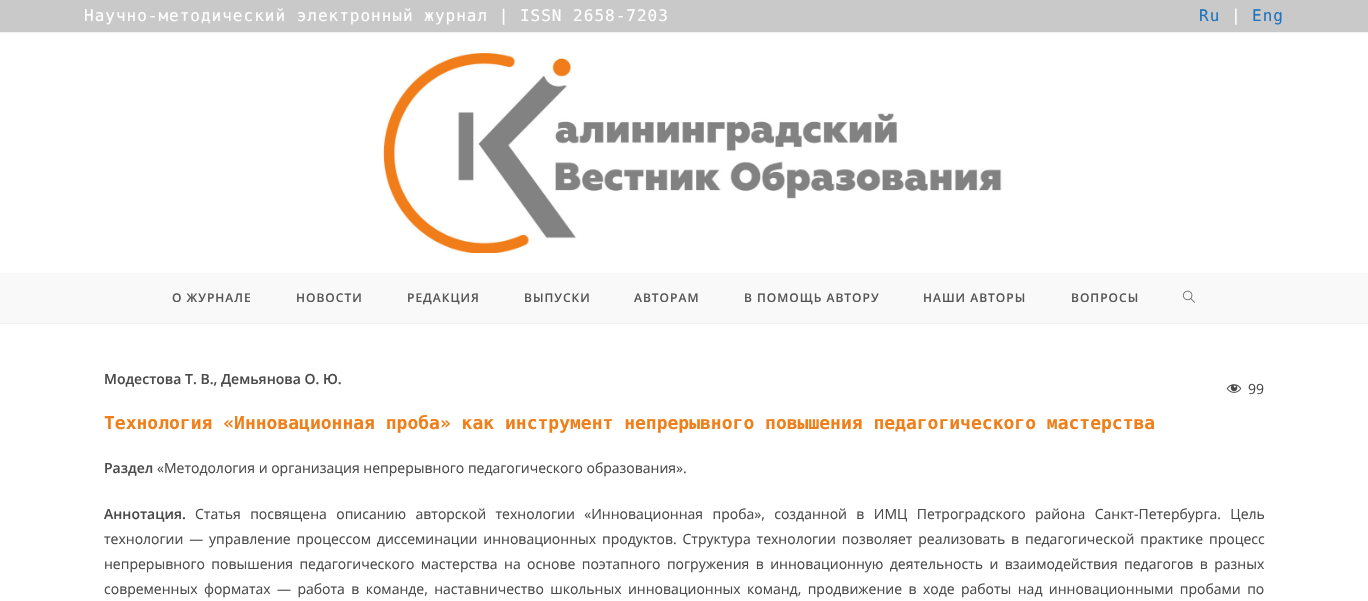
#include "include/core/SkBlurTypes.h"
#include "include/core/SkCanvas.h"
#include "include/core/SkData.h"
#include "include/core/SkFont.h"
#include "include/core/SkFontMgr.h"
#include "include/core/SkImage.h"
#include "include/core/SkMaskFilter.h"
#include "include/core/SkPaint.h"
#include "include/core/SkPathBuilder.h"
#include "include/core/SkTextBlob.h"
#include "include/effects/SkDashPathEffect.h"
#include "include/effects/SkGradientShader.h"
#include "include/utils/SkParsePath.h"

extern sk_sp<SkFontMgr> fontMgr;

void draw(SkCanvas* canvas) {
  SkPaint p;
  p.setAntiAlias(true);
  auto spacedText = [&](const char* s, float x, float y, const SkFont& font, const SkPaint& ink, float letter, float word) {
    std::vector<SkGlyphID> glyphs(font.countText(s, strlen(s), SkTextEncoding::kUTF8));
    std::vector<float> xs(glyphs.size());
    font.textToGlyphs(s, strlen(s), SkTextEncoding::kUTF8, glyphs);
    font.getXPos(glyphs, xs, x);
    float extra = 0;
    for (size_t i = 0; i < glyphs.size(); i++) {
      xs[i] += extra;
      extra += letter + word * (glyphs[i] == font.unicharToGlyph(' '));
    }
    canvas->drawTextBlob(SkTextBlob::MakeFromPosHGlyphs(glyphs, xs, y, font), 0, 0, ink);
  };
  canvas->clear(SK_ColorWHITE);
  p.setColor(SkColorSetRGB(201, 201, 201));
  canvas->drawRect(SkRect::MakeLTRB(0, 0, 1368, 32), p);
  p.setColor(SkColorSetRGB(241, 241, 241));
  canvas->drawRect(SkRect::MakeLTRB(0, 32, 1368, 33), p);
  canvas->drawRect(SkRect::MakeLTRB(0, 323, 1368, 324), p);
  canvas->drawImageRect(SkImages::DeferredFromEncodedData(SkData::MakeFromFileName("images/1.png")), SkRect::MakeLTRB(383, 53, 1002, 253), SkSamplingOptions());
  p.setColor(SkColorSetRGB(249, 249, 249));
  canvas->drawRect(SkRect::MakeLTRB(0, 273, 1368, 323), p);
  canvas->drawImageRect(SkImages::DeferredFromEncodedData(SkData::MakeFromFileName("images/2.png")), SkRect::MakeLTRB(1183, 290, 1195, 303), SkSamplingOptions());
  canvas->drawImageRect(SkImages::DeferredFromEncodedData(SkData::MakeFromFileName("images/3.png")), SkRect::MakeLTRB(1226, 384, 1242, 393), SkSamplingOptions());
  SkFont font1(fontMgr->matchFamilyStyle("DejaVu Sans Mono", SkFontStyle::Normal()), 16);
  font1.setSubpixel(true);
  p.setColor(SK_ColorWHITE);
  spacedText("Научно-методический электронный журнал | ISSN 2658-7203", 84, 21, font1, p, 1, 0);
  p.setColor(SkColorSetRGB(30, 115, 190));
  spacedText("Ru", 1199, 21, font1, p, 1, 0);
  p.setColor(SK_ColorWHITE);
  spacedText("|", 1231, 21, font1, p, 1, 0);
  p.setColor(SkColorSetRGB(30, 115, 190));
  spacedText("Eng", 1252, 21, font1, p, 1, 0);
  SkFont font2(fontMgr->matchFamilyStyle("Open Sans", SkFontStyle(600, SkFontStyle::kNormal_Width, SkFontStyle::kUpright_Slant)), 12);
  font2.setSubpixel(true);
  p.setColor(SkColorSetRGB(85, 85, 85));
  spacedText("О ЖУРНАЛЕ", 172, 302, font2, p, 1, 0);
  spacedText("НОВОСТИ", 296, 302, font2, p, 1, 0);
  spacedText("РЕДАКЦИЯ", 407, 302, font2, p, 1, 0);
  spacedText("ВЫПУСКИ", 524, 302, font2, p, 1, 0);
  spacedText("АВТОРАМ", 634, 302, font2, p, 1, 0);
  spacedText("В ПОМОЩЬ АВТОРУ", 744, 302, font2, p, 1, 0);
  spacedText("НАШИ АВТОРЫ", 923, 302, font2, p, 1, 0);
  spacedText("ВОПРОСЫ", 1071, 302, font2, p, 1, 0);
  SkFont font3(fontMgr->matchFamilyStyle("Open Sans", SkFontStyle(600, SkFontStyle::kNormal_Width, SkFontStyle::kUpright_Slant)), 14);
  font3.setSubpixel(true);
  p.setColor(SkColorSetRGB(74, 74, 74));
  canvas->drawString("Модестова Т. В., Демьянова О. Ю.", 104, 384, font3, p);
  SkFont font4(fontMgr->matchFamilyStyle("Open Sans", SkFontStyle::Normal()), 14);
  font4.setSubpixel(true);
  canvas->drawString("99", 1248, 394, font4, p);
  SkFont font5(fontMgr->matchFamilyStyle("DejaVu Sans Mono", SkFontStyle::Bold()), 18);
  font5.setSubpixel(true);
  p.setColor(SkColorSetRGB(239, 127, 26));
  canvas->drawString("Технология «Инновационная проба» как инструмент непрерывного повышения педагогического мастерства", 104, 429, font5, p);
  p.setColor(SkColorSetRGB(74, 74, 74));
  canvas->drawString("Раздел", 104, 473, font3, p);
  canvas->drawString("«Методология и организация непрерывного педагогического образования».", 157, 473, font4, p);
  canvas->drawString("Аннотация.", 104, 519, font3, p);
  spacedText("Статья посвящена описанию авторской технологии «Инновационная проба», созданной в ИМЦ Петроградского района Санкт-Петербурга. Цель", 195, 519, font4, p, 0, 5.75f);
  spacedText("технологии — управление процессом диссеминации инновационных продуктов. Структура технологии позволяет реализовать в педагогической практике процесс", 104, 544, font4, p, 0, 2.25f);
  spacedText("непрерывного повышения педагогического мастерства на основе поэтапного погружения в инновационную деятельность и взаимодействия педагогов в разных", 104, 569, font4, p, 0, 2.75f);
  spacedText("современных форматах — работа в команде, наставничество школьных инновационных команд, продвижение в ходе работы над инновационными пробами по", 104, 594, font4, p, 0, 2.75f);
}
